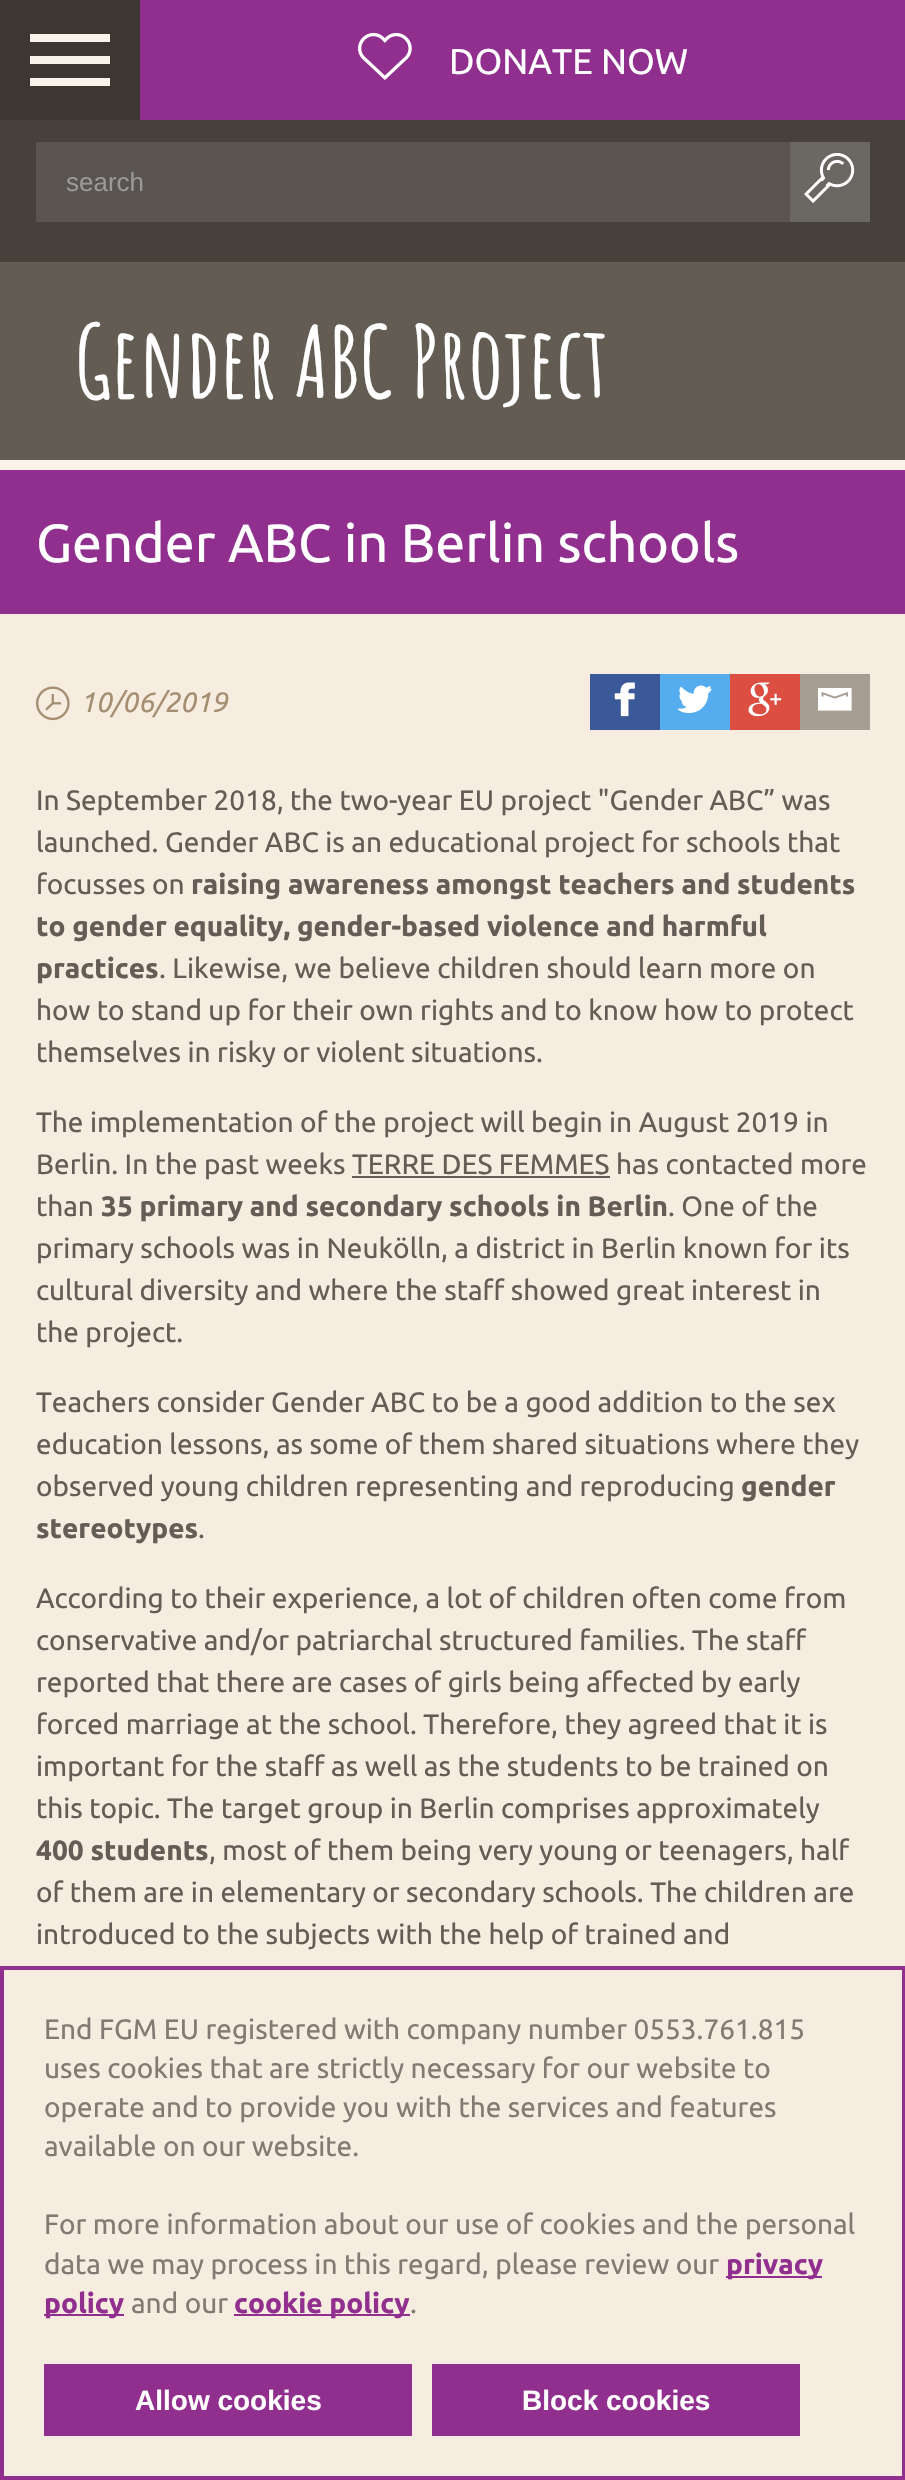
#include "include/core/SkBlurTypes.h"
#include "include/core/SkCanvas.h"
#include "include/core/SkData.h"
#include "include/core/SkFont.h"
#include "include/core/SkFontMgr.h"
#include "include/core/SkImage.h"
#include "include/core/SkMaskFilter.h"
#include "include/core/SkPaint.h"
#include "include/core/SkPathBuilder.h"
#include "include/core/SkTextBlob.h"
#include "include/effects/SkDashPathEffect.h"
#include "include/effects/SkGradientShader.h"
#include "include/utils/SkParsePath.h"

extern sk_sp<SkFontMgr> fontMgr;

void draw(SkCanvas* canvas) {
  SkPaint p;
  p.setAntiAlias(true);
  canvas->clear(SkColorSetRGB(247, 236, 224));
  p.setColor(SkColorSetRGB(60, 55, 49));
  canvas->drawRect(SkRect::MakeLTRB(0, 0, 140, 120), p);
  p.setColor(SkColorSetRGB(250, 243, 236));
  canvas->drawRect(SkRect::MakeLTRB(30, 34, 110, 42), p);
  canvas->drawRect(SkRect::MakeLTRB(30, 56, 110, 64), p);
  canvas->drawRect(SkRect::MakeLTRB(30, 78, 110, 86), p);
  p.setColor(SkColorSetRGB(144, 47, 142));
  canvas->drawRect(SkRect::MakeLTRB(140, 0, 905, 120), p);
  canvas->drawImageRect(SkImages::DeferredFromEncodedData(SkData::MakeFromFileName("images/1.png")), SkRect::MakeLTRB(358, 32, 412, 80), SkSamplingOptions());
  p.setColor(SkColorSetRGB(70, 65, 59));
  canvas->drawRect(SkRect::MakeLTRB(0, 120, 905, 262), p);
  p.setColor(SkColorSetRGB(89, 84, 79));
  canvas->drawRect(SkRect::MakeLTRB(36, 142, 790, 222), p);
  p.setColor(SkColorSetRGB(107, 103, 98));
  canvas->drawRect(SkRect::MakeLTRB(790, 142, 870, 222), p);
  canvas->drawImageRect(SkImages::DeferredFromEncodedData(SkData::MakeFromFileName("images/2.png")), SkRect::MakeLTRB(804, 153, 855, 203), SkSamplingOptions());
  p.setColor(SkColorSetRGB(250, 243, 236));
  canvas->drawRect(SkRect::MakeLTRB(0, 460, 905, 470), p);
  p.setColor(SkColorSetRGB(99, 92, 83));
  canvas->drawRect(SkRect::MakeLTRB(0, 262, 905, 460), p);
  p.setColor(SkColorSetRGB(144, 47, 142));
  canvas->drawRect(SkRect::MakeLTRB(0, 470, 905, 614), p);
  canvas->drawImageRect(SkImages::DeferredFromEncodedData(SkData::MakeFromFileName("images/3.png")), SkRect::MakeLTRB(36, 686, 70, 721), SkSamplingOptions());
  p.setColor(SkColorSetRGB(59, 89, 153));
  canvas->drawRect(SkRect::MakeLTRB(590, 674, 660, 730), p);
  canvas->drawImageRect(SkImages::DeferredFromEncodedData(SkData::MakeFromFileName("images/4.png")), SkRect::MakeLTRB(614, 682, 635, 717), SkSamplingOptions());
  p.setColor(SkColorSetRGB(85, 172, 238));
  canvas->drawRect(SkRect::MakeLTRB(660, 674, 730, 730), p);
  canvas->drawImageRect(SkImages::DeferredFromEncodedData(SkData::MakeFromFileName("images/5.png")), SkRect::MakeLTRB(678, 685, 712, 713), SkSamplingOptions());
  p.setColor(SkColorSetRGB(220, 78, 65));
  canvas->drawRect(SkRect::MakeLTRB(730, 674, 800, 730), p);
  canvas->drawImageRect(SkImages::DeferredFromEncodedData(SkData::MakeFromFileName("images/6.png")), SkRect::MakeLTRB(748, 682, 782, 717), SkSamplingOptions());
  p.setColor(SkColorSetRGB(166, 157, 147));
  canvas->drawRect(SkRect::MakeLTRB(800, 674, 870, 730), p);
  canvas->drawImageRect(SkImages::DeferredFromEncodedData(SkData::MakeFromFileName("images/7.png")), SkRect::MakeLTRB(818, 688, 852, 711), SkSamplingOptions());
  p.setColor(SkColorSetRGB(100, 93, 86));
  canvas->drawRect(SkRect::MakeLTRB(352, 1176, 610, 1178), p);
  p.setStyle(SkPaint::kStroke_Style);
  p.setStrokeWidth(4);
  p.setColor(SkColorSetRGB(144, 47, 142));
  canvas->drawRect(SkRect::MakeLTRB(2, 1968, 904, 2478), p);
  p.setStyle(SkPaint::kFill_Style);
  canvas->drawRect(SkRect::MakeLTRB(726, 2276, 822, 2278), p);
  canvas->drawRect(SkRect::MakeLTRB(44, 2314, 124, 2316), p);
  canvas->drawRect(SkRect::MakeLTRB(234, 2314, 410, 2316), p);
  canvas->drawRect(SkRect::MakeLTRB(44, 2364, 412, 2436), p);
  canvas->drawRect(SkRect::MakeLTRB(432, 2364, 800, 2436), p);
  SkFont font1(fontMgr->matchFamilyStyle("Ubuntu", SkFontStyle::Normal()), 35.75f);
  font1.setSubpixel(true);
  p.setColor(SK_ColorWHITE);
  canvas->drawString("DONATE NOW", 449, 74, font1, p);
  SkFont font2(fontMgr->matchFamilyStyle("Liberation Sans", SkFontStyle::Normal()), 26);
  font2.setSubpixel(true);
  p.setColor(SkColorSetRGB(153, 153, 153));
  canvas->drawString("search", 66, 191, font2, p);
  SkFont font3(fontMgr->matchFamilyStyle("Amatic SC", SkFontStyle::Bold()), 98);
  font3.setSubpixel(true);
  p.setColor(SK_ColorWHITE);
  canvas->drawString("Gender ABC Project", 75, 398, font3, p);
  SkFont font4(fontMgr->matchFamilyStyle("Ubuntu", SkFontStyle::Normal()), 53.75f);
  font4.setSubpixel(true);
  canvas->drawString("Gender ABC in Berlin schools", 36, 562, font4, p);
  SkFont font5(fontMgr->matchFamilyStyle("Ubuntu", SkFontStyle::Italic()), 28);
  font5.setSubpixel(true);
  p.setColor(SkColorSetRGB(165, 142, 113));
  canvas->drawString("10/06/2019", 80, 712, font5, p);
  SkFont font6(fontMgr->matchFamilyStyle("Ubuntu", SkFontStyle::Normal()), 28);
  font6.setSubpixel(true);
  p.setColor(SkColorSetRGB(100, 93, 86));
  canvas->drawString("In September 2018, the two-year EU project \"Gender ABC” was", 36, 810, font6, p);
  canvas->drawString("launched. Gender ABC is an educational project for schools that", 36, 852, font6, p);
  canvas->drawString("focusses on", 36, 894, font6, p);
  SkFont font7(fontMgr->matchFamilyStyle("Ubuntu", SkFontStyle::Bold()), 28);
  font7.setSubpixel(true);
  canvas->drawString("raising awareness amongst teachers and students", 191, 894, font7, p);
  canvas->drawString("to gender equality, gender-based violence and harmful", 36, 936, font7, p);
  canvas->drawString("practices", 36, 978, font7, p);
  canvas->drawString(". Likewise, we believe children should learn more on", 159, 978, font6, p);
  canvas->drawString("how to stand up for their own rights and to know how to protect", 36, 1020, font6, p);
  canvas->drawString("themselves in risky or violent situations.", 36, 1062, font6, p);
  canvas->drawString("The implementation of the project will begin in August 2019 in", 36, 1132, font6, p);
  canvas->drawString("Berlin. In the past weeks TERRE DES FEMMES has contacted more", 36, 1174, font6, p);
  canvas->drawString("than", 36, 1216, font6, p);
  canvas->drawString("35 primary and secondary schools in Berlin", 101, 1216, font7, p);
  canvas->drawString(". One of the", 668, 1216, font6, p);
  canvas->drawString("primary schools was in Neukölln, a district in Berlin known for its", 36, 1258, font6, p);
  canvas->drawString("cultural diversity and where the staff showed great interest in", 36, 1300, font6, p);
  canvas->drawString("the project.", 36, 1342, font6, p);
  canvas->drawString("Teachers consider Gender ABC to be a good addition to the sex", 36, 1412, font6, p);
  canvas->drawString("education lessons, as some of them shared situations where they", 36, 1454, font6, p);
  canvas->drawString("observed young children representing and reproducing", 36, 1496, font6, p);
  canvas->drawString("gender", 741, 1496, font7, p);
  canvas->drawString("stereotypes", 36, 1538, font7, p);
  canvas->drawString(".", 198, 1538, font6, p);
  canvas->drawString("According to their experience, a lot of children often come from", 36, 1608, font6, p);
  canvas->drawString("conservative and/or patriarchal structured families. The staff", 36, 1650, font6, p);
  canvas->drawString("reported that there are cases of girls being affected by early", 36, 1692, font6, p);
  canvas->drawString("forced marriage at the school. Therefore, they agreed that it is", 36, 1734, font6, p);
  canvas->drawString("important for the staff as well as the students to be trained on", 36, 1776, font6, p);
  canvas->drawString("this topic. The target group in Berlin comprises approximately", 36, 1818, font6, p);
  canvas->drawString("400 students", 36, 1860, font7, p);
  canvas->drawString(", most of them being very young or teenagers, half", 209, 1860, font6, p);
  canvas->drawString("of them are in elementary or secondary schools. The children are", 36, 1902, font6, p);
  canvas->drawString("introduced to the subjects with the help of trained and", 36, 1944, font6, p);
  p.setColor(SkColorSetRGB(131, 123, 115));
  canvas->drawString("End FGM EU registered with company number 0553.761.815", 44, 2039, font6, p);
  canvas->drawString("uses cookies that are strictly necessary for our website to", 44, 2078, font6, p);
  canvas->drawString("operate and to provide you with the services and features", 44, 2117, font6, p);
  canvas->drawString("available on our website.", 44, 2156, font6, p);
  canvas->drawString("For more information about our use of cookies and the personal", 44, 2234, font6, p);
  canvas->drawString("data we may process in this regard, please review our", 44, 2274, font6, p);
  p.setColor(SkColorSetRGB(144, 47, 142));
  canvas->drawString("privacy", 726, 2274, font7, p);
  canvas->drawString("policy", 44, 2313, font7, p);
  p.setColor(SkColorSetRGB(131, 123, 115));
  canvas->drawString("and our", 131, 2313, font6, p);
  p.setColor(SkColorSetRGB(144, 47, 142));
  canvas->drawString("cookie policy", 234, 2313, font7, p);
  p.setColor(SkColorSetRGB(131, 123, 115));
  canvas->drawString(".", 410, 2313, font6, p);
  SkFont font8(fontMgr->matchFamilyStyle("Liberation Sans", SkFontStyle::Bold()), 28);
  font8.setSubpixel(true);
  p.setColor(SK_ColorWHITE);
  canvas->drawString("Allow cookies", 135, 2410, font8, p);
  canvas->drawString("Block cookies", 522, 2410, font8, p);
}
